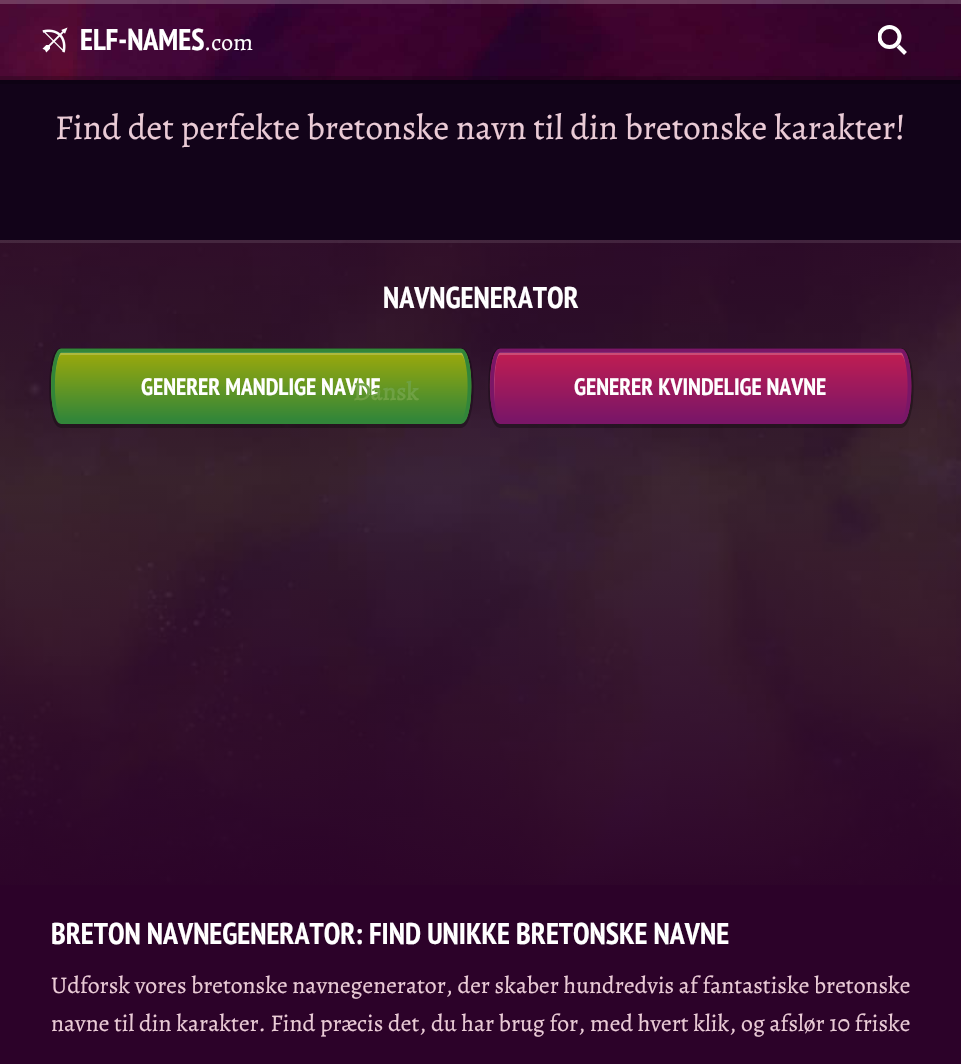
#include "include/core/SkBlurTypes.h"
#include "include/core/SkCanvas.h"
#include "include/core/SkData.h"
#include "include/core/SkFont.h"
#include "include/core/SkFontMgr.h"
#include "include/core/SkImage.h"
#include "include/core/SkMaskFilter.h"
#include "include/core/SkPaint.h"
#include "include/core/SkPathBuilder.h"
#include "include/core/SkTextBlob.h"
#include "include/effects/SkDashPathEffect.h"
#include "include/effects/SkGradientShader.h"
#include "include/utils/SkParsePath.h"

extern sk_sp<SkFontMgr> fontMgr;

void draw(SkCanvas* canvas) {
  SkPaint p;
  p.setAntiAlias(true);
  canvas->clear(SkColorSetRGB(44, 2, 41));
  canvas->drawImageRect(SkImages::DeferredFromEncodedData(SkData::MakeFromFileName("images/1.png")), SkRect::MakeLTRB(0, 240, 961, 885), SkSamplingOptions());
  p.setColor(SkColorSetRGB(14, 2, 20));
  canvas->drawRect(SkRect::MakeLTRB(0, 80, 961, 84), p);
  canvas->drawImageRect(SkImages::DeferredFromEncodedData(SkData::MakeFromFileName("images/2.png")), SkRect::MakeLTRB(0, 0, 961, 80), SkSamplingOptions());
  p.setColor(SkColorSetARGB(51, 0, 0, 0));
  canvas->drawRect(SkRect::MakeLTRB(0, 76, 961, 80), p);
  p.setColor(SkColorSetARGB(51, 255, 255, 255));
  canvas->drawRect(SkRect::MakeLTRB(0, 0, 961, 4), p);
  canvas->drawImageRect(SkImages::DeferredFromEncodedData(SkData::MakeFromFileName("images/3.png")), SkRect::MakeLTRB(42, 27, 68, 53), SkSamplingOptions());
  canvas->save();
  canvas->clipRect(SkRect::MakeLTRB(878, 25, 908, 55));
  p.setStyle(SkPaint::kStroke_Style);
  p.setStrokeWidth(4);
  p.setColor(SK_ColorWHITE);
  canvas->drawCircle(889.5f, 37, 10, p);
  canvas->restore();
  canvas->drawPath(SkPathBuilder().moveTo(898, 46).lineTo(905.5f, 53.5f).detach(), p);
  p.setStyle(SkPaint::kFill_Style);
  p.setColor(SkColorSetARGB(26, 255, 255, 255));
  canvas->drawRect(SkRect::MakeLTRB(0, 240, 961, 243), p);
  p.setColor(SkColorSetRGB(18, 3, 25));
  canvas->drawRect(SkRect::MakeLTRB(0, 84, 961, 240), p);
  p.setColor(SkColorSetARGB(77, 0, 0, 0));
  canvas->drawPath(SkPathBuilder(SkPathFillType::kEvenOdd).moveTo(61, 348).cubicTo(47, 348, 49, 396, 50, 404).cubicTo(51, 410, 52, 423, 58, 427).lineTo(61, 428).lineTo(461, 428).cubicTo(478, 428, 478, 348, 461, 348).close().moveTo(61, 349).cubicTo(48, 349, 48, 424, 61, 424).lineTo(461, 424).lineTo(463, 423).cubicTo(469, 419, 471, 400, 471, 394).cubicTo(471, 388, 471, 349, 461, 349).close().detach(), p);
  {
    const SkColor colors[] = {SkColorSetRGB(154, 168, 12), SkColorSetRGB(50, 134, 57)};
    const float stops[] = {0, 1};
    const SkPoint ends[] = {{261, 285}, {261, 353}};
    p.setShader(SkGradientShader::MakeLinear(ends, colors, stops, 2, SkTileMode::kClamp));
    p.setAlpha(255);
  }
  canvas->drawPath(SkPathBuilder().moveTo(61, 349).lineTo(461, 349).cubicTo(463, 349, 464, 350, 466, 353).lineTo(57, 353).cubicTo(58, 350, 60, 349, 61, 349).close().detach(), p);
  {
    const SkColor colors[] = {SkColorSetRGB(154, 168, 12), SkColorSetRGB(50, 134, 57)};
    const float stops[] = {0, 1};
    const SkPoint ends[] = {{261, 353}, {261, 420}};
    p.setShader(SkGradientShader::MakeLinear(ends, colors, stops, 2, SkTileMode::kClamp));
    p.setAlpha(255);
  }
  canvas->drawPath(SkPathBuilder().moveTo(57, 420).cubicTo(49, 406, 49, 368, 57, 353).lineTo(466, 353).cubicTo(473, 367, 473, 406, 466, 420).close().detach(), p);
  p.setShader(nullptr);
  p.setColor(SkColorSetARGB(51, 255, 255, 255));
  canvas->drawPath(SkPathBuilder().moveTo(61, 355).lineTo(461, 355).cubicTo(463, 355, 465, 360, 466, 367).cubicTo(465, 358, 463, 352, 461, 352).lineTo(61, 352).cubicTo(58, 352, 55, 368, 55, 386).lineTo(55, 388).cubicTo(55, 369, 58, 355, 61, 355).close().detach(), p);
  p.setStyle(SkPaint::kStroke_Style);
  p.setStrokeWidth(3.8f);
  p.setColor(SkColorSetRGB(50, 134, 57));
  canvas->drawPath(SkPathBuilder().moveTo(61, 350.5f).lineTo(461, 350.5f).cubicTo(465.5f, 350.5f, 469.5f, 366.5f, 469.5f, 386).cubicTo(469.5f, 406, 465.5f, 422, 461, 422).lineTo(61, 422).cubicTo(57, 422, 53, 406, 53, 386).cubicTo(53, 366.5f, 57, 350.5f, 61, 350.5f).close().detach(), p);
  p.setStyle(SkPaint::kFill_Style);
  p.setColor(SkColorSetARGB(77, 0, 0, 0));
  canvas->drawPath(SkPathBuilder(SkPathFillType::kEvenOdd).moveTo(500, 348).cubicTo(486, 348, 488, 396, 489, 404).cubicTo(490, 410, 491, 423, 497, 427).lineTo(500, 428).lineTo(901, 428).cubicTo(918, 428, 918, 348, 901, 348).close().moveTo(500, 349).cubicTo(490, 349, 490, 388, 490, 394).cubicTo(491, 400, 492, 419, 498, 423).lineTo(500, 424).lineTo(901, 424).cubicTo(914, 424, 914, 349, 901, 349).close().detach(), p);
  {
    const SkColor colors[] = {SkColorSetRGB(192, 29, 82), SkColorSetRGB(122, 22, 103)};
    const float stops[] = {0, 1};
    const SkPoint ends[] = {{701, 285}, {701, 353}};
    p.setShader(SkGradientShader::MakeLinear(ends, colors, stops, 2, SkTileMode::kClamp));
    p.setAlpha(255);
  }
  canvas->drawPath(SkPathBuilder().moveTo(500, 349).lineTo(901, 349).cubicTo(903, 349, 904, 350, 906, 353).lineTo(495, 353).cubicTo(497, 350, 498, 349, 500, 349).close().detach(), p);
  {
    const SkColor colors[] = {SkColorSetRGB(192, 29, 82), SkColorSetRGB(122, 22, 103)};
    const float stops[] = {0, 1};
    const SkPoint ends[] = {{701, 353}, {701, 420}};
    p.setShader(SkGradientShader::MakeLinear(ends, colors, stops, 2, SkTileMode::kClamp));
    p.setAlpha(255);
  }
  canvas->drawPath(SkPathBuilder().moveTo(496, 420).cubicTo(488, 406, 488, 368, 495, 353).lineTo(906, 353).cubicTo(913, 367, 913, 406, 906, 420).close().detach(), p);
  p.setShader(nullptr);
  p.setColor(SkColorSetARGB(51, 255, 255, 255));
  canvas->drawPath(SkPathBuilder().moveTo(500, 355).lineTo(901, 355).cubicTo(903, 355, 905, 360, 906, 367).cubicTo(905, 358, 903, 352, 901, 352).lineTo(500, 352).cubicTo(497, 352, 494, 368, 494, 386).cubicTo(494, 394, 494, 401, 495, 407).cubicTo(494, 395, 494, 355, 500, 355).close().detach(), p);
  p.setStyle(SkPaint::kStroke_Style);
  p.setColor(SkColorSetRGB(122, 22, 103));
  canvas->drawPath(SkPathBuilder().moveTo(500, 350.5f).lineTo(901, 350.5f).cubicTo(905.5f, 350.5f, 909.5f, 366.5f, 909.5f, 386).cubicTo(909.5f, 406, 905.5f, 422, 901, 422).lineTo(500, 422).cubicTo(495.5f, 422, 492, 406, 492, 386).cubicTo(492, 366.5f, 495.5f, 350.5f, 500, 350.5f).close().detach(), p);
  SkFont font1(fontMgr->matchFamilyStyle("PT Sans Narrow", SkFontStyle::Bold()), 30);
  font1.setSubpixel(true);
  p.setStyle(SkPaint::kFill_Style);
  p.setColor(SK_ColorWHITE);
  canvas->drawString("ELF-NAMES", 80, 50, font1, p);
  SkFont font2(fontMgr->matchFamilyStyle("Alegreya", SkFontStyle::Normal()), 23.75f);
  font2.setSubpixel(true);
  canvas->drawString(".com", 204, 50, font2, p);
  SkFont font3(fontMgr->matchFamilyStyle("Alegreya", SkFontStyle::Normal()), 35);
  font3.setSubpixel(true);
  p.setColor(SkColorSetRGB(234, 203, 214));
  canvas->drawString("Find det perfekte bretonske navn til din bretonske karakter!", 55, 139, font3, p);
  p.setColor(SK_ColorWHITE);
  canvas->drawString("NAVNGENERATOR", 383, 308, font1, p);
  SkFont font4(fontMgr->matchFamilyStyle("PT Sans Narrow", SkFontStyle::Bold()), 23.75f);
  font4.setSubpixel(true);
  canvas->drawString("GENERER MANDLIGE NAVNE", 141, 395, font4, p);
  canvas->drawString("GENERER KVINDELIGE NAVNE", 574, 395, font4, p);
  canvas->drawString("BRETON NAVNEGENERATOR: FIND UNIKKE BRETONSKE NAVNE", 51, 944, font1, p);
  p.setColor(SkColorSetRGB(234, 203, 214));
  canvas->drawString("Udforsk vores bretonske navnegenerator, der skaber hundredvis af fantastiske bretonske", 51, 993, font2, p);
  canvas->drawString("navne til din karakter. Find præcis det, du har brug for, med hvert klik, og afslør 10 friske", 51, 1031, font2, p);
  SkFont font5(fontMgr->matchFamilyStyle("Alegreya", SkFontStyle::Bold()), 25);
  font5.setSubpixel(true);
  p.setColor(SkColorSetRGB(111, 161, 67));
  canvas->drawString("Dansk", 353, 400, font5, p);
}
